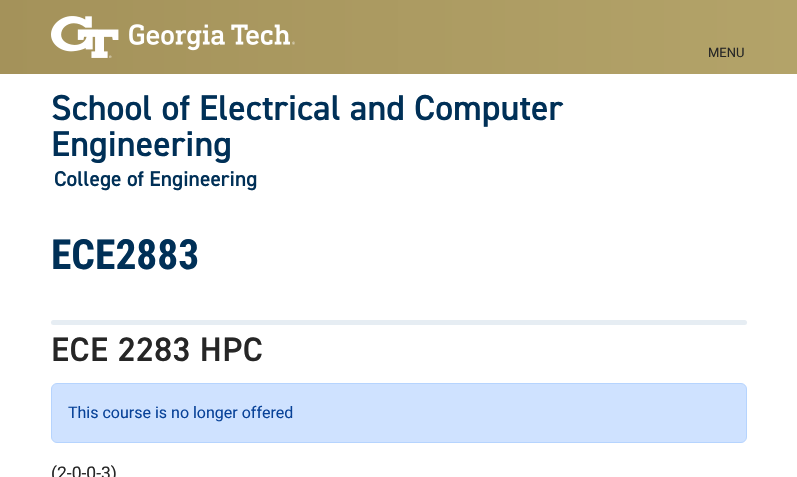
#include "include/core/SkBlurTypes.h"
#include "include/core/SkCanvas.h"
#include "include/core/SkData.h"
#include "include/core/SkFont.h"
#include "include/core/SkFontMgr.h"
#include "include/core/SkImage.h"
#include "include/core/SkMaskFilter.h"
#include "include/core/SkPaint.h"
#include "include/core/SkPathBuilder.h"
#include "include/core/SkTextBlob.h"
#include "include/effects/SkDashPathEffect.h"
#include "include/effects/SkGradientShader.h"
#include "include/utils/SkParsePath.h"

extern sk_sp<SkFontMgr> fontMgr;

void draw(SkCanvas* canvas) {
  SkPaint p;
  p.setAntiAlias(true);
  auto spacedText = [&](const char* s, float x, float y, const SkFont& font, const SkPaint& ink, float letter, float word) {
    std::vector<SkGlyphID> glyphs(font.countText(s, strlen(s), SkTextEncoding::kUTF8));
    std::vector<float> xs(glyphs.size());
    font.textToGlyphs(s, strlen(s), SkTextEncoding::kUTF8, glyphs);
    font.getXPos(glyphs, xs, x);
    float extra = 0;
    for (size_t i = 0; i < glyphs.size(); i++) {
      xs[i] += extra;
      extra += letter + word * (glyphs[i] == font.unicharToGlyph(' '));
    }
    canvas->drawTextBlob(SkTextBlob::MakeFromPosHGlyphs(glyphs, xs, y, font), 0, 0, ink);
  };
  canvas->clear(SK_ColorWHITE);
  {
    const SkColor colors[] = {SkColorSetRGB(164, 146, 90), SkColorSetRGB(179, 163, 105)};
    const float stops[] = {0, 1};
    const SkPoint ends[] = {{0, 37}, {797, 37}};
    p.setShader(SkGradientShader::MakeLinear(ends, colors, stops, 2, SkTileMode::kClamp));
    p.setAlpha(255);
  }
  canvas->drawRect(SkRect::MakeLTRB(0, 0, 797, 74), p);
  canvas->drawImageRect(SkImages::DeferredFromEncodedData(SkData::MakeFromFileName("images/1.png")), SkRect::MakeLTRB(51, 16, 295, 58), SkSamplingOptions());
  p.setShader(nullptr);
  p.setColor(SkColorSetRGB(230, 237, 243));
  canvas->drawRoundRect(SkRect::MakeLTRB(51, 320, 747, 325), 2.5f, 2.5f, p);
  p.setColor(SkColorSetRGB(207, 226, 255));
  canvas->drawRoundRect(SkRect::MakeLTRB(51.5f, 383.5f, 746.5f, 442.5f), 5.5f, 5.5f, p);
  p.setStyle(SkPaint::kStroke_Style);
  p.setStrokeWidth(1);
  p.setColor(SkColorSetRGB(182, 212, 254));
  canvas->drawRoundRect(SkRect::MakeLTRB(51.5f, 383.5f, 746.5f, 442.5f), 5.5f, 5.5f, p);
  SkFont font1(fontMgr->matchFamilyStyle("Roboto", SkFontStyle::Normal()), 13);
  font1.setSubpixel(true);
  p.setStyle(SkPaint::kFill_Style);
  p.setColor(SkColorSetRGB(38, 38, 38));
  canvas->drawString("MENU", 708, 57, font1, p);
  SkFont font2(fontMgr->matchFamilyStyle("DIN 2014", SkFontStyle(600, SkFontStyle::kNormal_Width, SkFontStyle::kUpright_Slant)), 36);
  font2.setSubpixel(true);
  p.setColor(SkColorSetRGB(0, 48, 87));
  canvas->drawString("School of Electrical and Computer", 51, 120, font2, p);
  canvas->drawString("Engineering", 51, 156, font2, p);
  SkFont font3(fontMgr->matchFamilyStyle("DIN 2014", SkFontStyle(600, SkFontStyle::kNormal_Width, SkFontStyle::kUpright_Slant)), 21.5f);
  font3.setSubpixel(true);
  canvas->drawString("College of Engineering", 54, 186, font3, p);
  SkFont font4(fontMgr->matchFamilyStyle("Roboto Condensed", SkFontStyle::Bold()), 41.5f);
  font4.setSubpixel(true);
  canvas->drawString("ECE2883", 51, 269, font4, p);
  SkFont font5(fontMgr->matchFamilyStyle("DIN 2014", SkFontStyle(600, SkFontStyle::kNormal_Width, SkFontStyle::kUpright_Slant)), 34);
  font5.setSubpixel(true);
  p.setColor(SkColorSetRGB(38, 38, 38));
  spacedText("ECE 2283 HPC", 51, 361, font5, p, 0.5f, 0);
  SkFont font6(fontMgr->matchFamilyStyle("Roboto", SkFontStyle::Normal()), 16);
  font6.setSubpixel(true);
  p.setColor(SkColorSetRGB(8, 66, 152));
  canvas->drawString("This course is no longer offered", 68, 418, font6, p);
  SkFont font7(fontMgr->matchFamilyStyle("Roboto", SkFontStyle::Normal()), 17.5f);
  font7.setSubpixel(true);
  p.setColor(SkColorSetRGB(38, 38, 38));
  canvas->drawString("(2-0-0-3)", 51, 479, font7, p);
}
